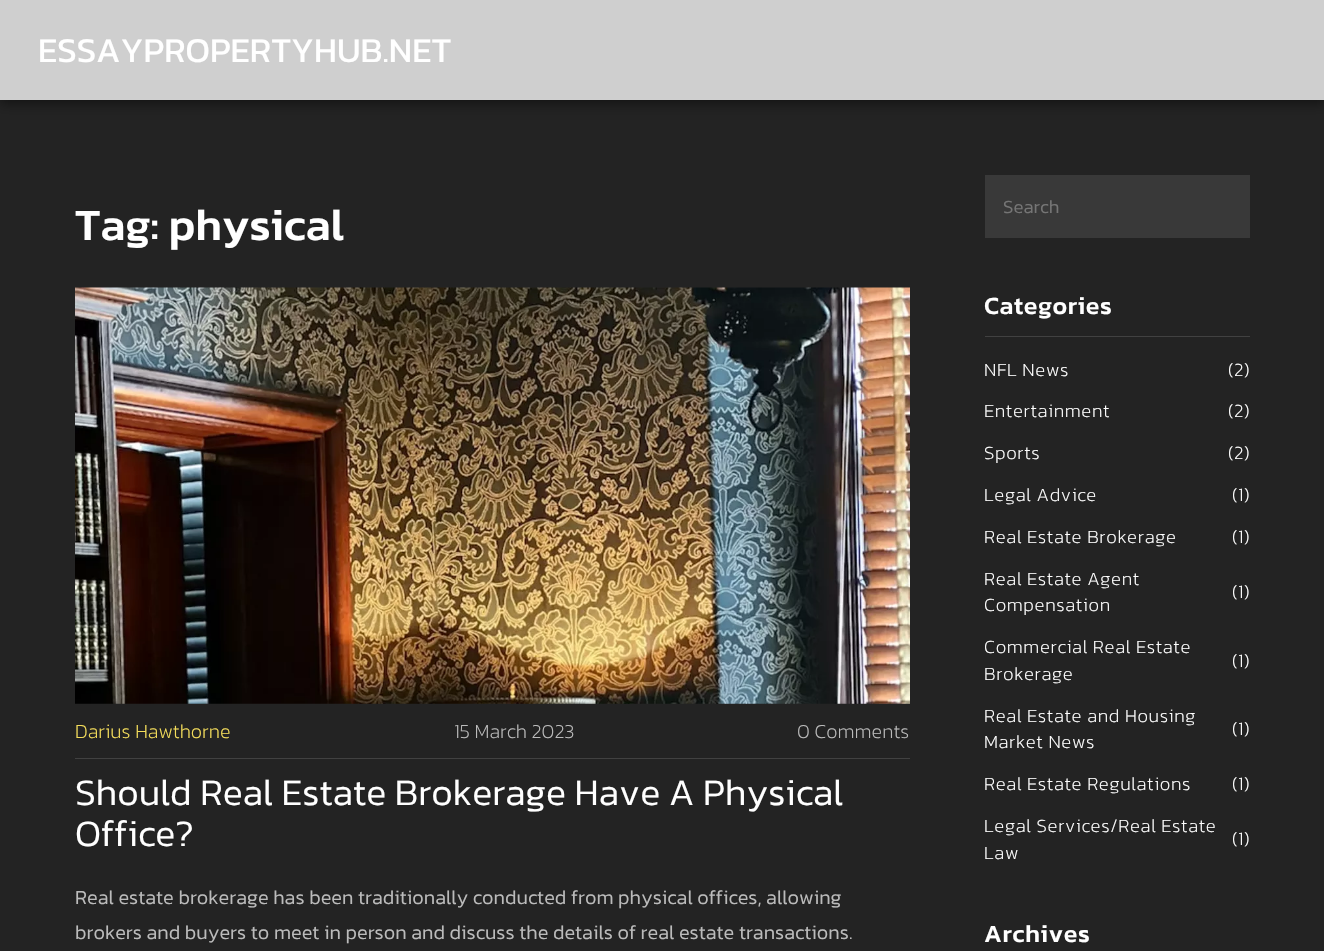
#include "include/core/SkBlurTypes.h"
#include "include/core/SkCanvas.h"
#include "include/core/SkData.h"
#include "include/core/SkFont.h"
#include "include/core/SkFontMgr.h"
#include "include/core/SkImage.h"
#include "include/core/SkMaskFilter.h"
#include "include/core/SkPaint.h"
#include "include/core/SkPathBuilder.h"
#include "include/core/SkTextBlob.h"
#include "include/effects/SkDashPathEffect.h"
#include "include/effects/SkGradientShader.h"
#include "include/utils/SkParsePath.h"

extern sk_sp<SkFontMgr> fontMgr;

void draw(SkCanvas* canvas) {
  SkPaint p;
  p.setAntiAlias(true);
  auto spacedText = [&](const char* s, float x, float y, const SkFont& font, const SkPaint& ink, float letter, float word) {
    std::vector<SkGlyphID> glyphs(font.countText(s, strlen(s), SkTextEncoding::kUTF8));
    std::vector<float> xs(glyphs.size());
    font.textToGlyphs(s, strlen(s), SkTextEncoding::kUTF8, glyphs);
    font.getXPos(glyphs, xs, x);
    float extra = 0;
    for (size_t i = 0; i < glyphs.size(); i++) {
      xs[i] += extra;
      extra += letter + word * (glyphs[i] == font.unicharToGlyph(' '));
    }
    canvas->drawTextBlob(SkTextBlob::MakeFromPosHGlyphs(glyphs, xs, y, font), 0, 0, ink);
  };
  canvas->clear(SkColorSetRGB(35, 35, 35));
  p.setColor(SkColorSetARGB(128, 0, 0, 0));
  p.setMaskFilter(SkMaskFilter::MakeBlur(kNormal_SkBlurStyle, 6));
  canvas->drawRect(SkRect::MakeLTRB(0, 3, 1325, 103), p);
  p.setMaskFilter(nullptr);
  p.setColor(SkColorSetRGB(207, 207, 207));
  canvas->drawRect(SkRect::MakeLTRB(0, 0, 1324, 100), p);
  canvas->drawImageRect(SkImages::DeferredFromEncodedData(SkData::MakeFromFileName("images/1.png")), SkRect::MakeLTRB(75, 287, 910, 704), SkSamplingOptions());
  p.setColor(SkColorSetRGB(65, 65, 65));
  canvas->drawRect(SkRect::MakeLTRB(75, 758, 910, 759), p);
  p.setColor(SkColorSetRGB(57, 57, 57));
  canvas->drawRect(SkRect::MakeLTRB(985, 175, 1250, 238), p);
  p.setColor(SkColorSetRGB(65, 65, 65));
  canvas->drawRect(SkRect::MakeLTRB(985, 336, 1250, 337), p);
  SkFont font1(fontMgr->matchFamilyStyle("Kanit", SkFontStyle::Normal()), 35);
  font1.setSubpixel(true);
  p.setColor(SK_ColorWHITE);
  canvas->drawString("ESSAYPROPERTYHUB.NET", 38, 62, font1, p);
  SkFont font2(fontMgr->matchFamilyStyle("Kanit", SkFontStyle(500, SkFontStyle::kNormal_Width, SkFontStyle::kUpright_Slant)), 45);
  font2.setSubpixel(true);
  canvas->drawString("Tag: physical", 75, 240, font2, p);
  SkFont font3(fontMgr->matchFamilyStyle("Kanit", SkFontStyle(200, SkFontStyle::kNormal_Width, SkFontStyle::kUpright_Slant)), 20);
  font3.setSubpixel(true);
  p.setColor(SkColorSetRGB(244, 221, 91));
  canvas->drawString("Darius Hawthorne", 75, 738, font3, p);
  p.setColor(SkColorSetRGB(187, 187, 187));
  canvas->drawString("15 March 2023", 454, 738, font3, p);
  canvas->drawString("0 Comments", 797, 738, font3, p);
  SkFont font4(fontMgr->matchFamilyStyle("Kanit", SkFontStyle(300, SkFontStyle::kNormal_Width, SkFontStyle::kUpright_Slant)), 37.5f);
  font4.setSubpixel(true);
  p.setColor(SK_ColorWHITE);
  canvas->drawString("Should Real Estate Brokerage Have A Physical", 75, 805, font4, p);
  canvas->drawString("Office?", 75, 846, font4, p);
  SkFont font5(fontMgr->matchFamilyStyle("Kanit", SkFontStyle(300, SkFontStyle::kNormal_Width, SkFontStyle::kUpright_Slant)), 20);
  font5.setSubpixel(true);
  p.setColor(SkColorSetRGB(187, 187, 187));
  canvas->drawString("Real estate brokerage has been traditionally conducted from physical offices, allowing", 75, 904, font5, p);
  canvas->drawString("brokers and buyers to meet in person and discuss the details of real estate transactions.", 75, 939, font5, p);
  SkFont font6(fontMgr->matchFamilyStyle("Kanit", SkFontStyle(300, SkFontStyle::kNormal_Width, SkFontStyle::kUpright_Slant)), 18.75f);
  font6.setSubpixel(true);
  p.setColor(SkColorSetRGB(117, 117, 117));
  canvas->drawString("Search", 1003, 213, font6, p);
  SkFont font7(fontMgr->matchFamilyStyle("Kanit", SkFontStyle(500, SkFontStyle::kNormal_Width, SkFontStyle::kUpright_Slant)), 25);
  font7.setSubpixel(true);
  p.setColor(SK_ColorWHITE);
  spacedText("Categories", 984, 314, font7, p, 0.6f, 0);
  SkFont font8(fontMgr->matchFamilyStyle("Kanit", SkFontStyle(200, SkFontStyle::kNormal_Width, SkFontStyle::kUpright_Slant)), 18.75f);
  font8.setSubpixel(true);
  spacedText("NFL News", 984, 376, font8, p, 0.6f, 0);
  spacedText("(2)", 1228, 376, font8, p, 0.6f, 0);
  spacedText("Entertainment", 984, 417, font8, p, 0.6f, 0);
  spacedText("(2)", 1228, 417, font8, p, 0.6f, 0);
  spacedText("Sports", 984, 459, font8, p, 0.6f, 0);
  spacedText("(2)", 1228, 459, font8, p, 0.6f, 0);
  spacedText("Legal Advice", 984, 501, font8, p, 0.6f, 0);
  spacedText("(1)", 1232, 501, font8, p, 0.6f, 0);
  spacedText("Real Estate Brokerage", 984, 543, font8, p, 0.6f, 0);
  spacedText("(1)", 1232, 543, font8, p, 0.6f, 0);
  spacedText("Real Estate Agent", 984, 585, font8, p, 0.6f, 0);
  spacedText("(1)", 1232, 598, font8, p, 0.6f, 0);
  spacedText("Compensation", 984, 611, font8, p, 0.6f, 0);
  spacedText("Commercial Real Estate", 984, 653, font8, p, 0.6f, 0);
  spacedText("(1)", 1232, 667, font8, p, 0.6f, 0);
  spacedText("Brokerage", 984, 680, font8, p, 0.6f, 0);
  spacedText("Real Estate and Housing", 984, 722, font8, p, 0.6f, 0);
  spacedText("(1)", 1232, 735, font8, p, 0.6f, 0);
  spacedText("Market News", 984, 748, font8, p, 0.6f, 0);
  spacedText("Real Estate Regulations", 984, 790, font8, p, 0.6f, 0);
  spacedText("(1)", 1232, 790, font8, p, 0.6f, 0);
  spacedText("Legal Services/Real Estate", 984, 832, font8, p, 0.6f, 0);
  spacedText("(1)", 1232, 845, font8, p, 0.6f, 0);
  spacedText("Law", 984, 859, font8, p, 0.6f, 0);
  spacedText("Archives", 984, 942, font7, p, 0.6f, 0);
}
